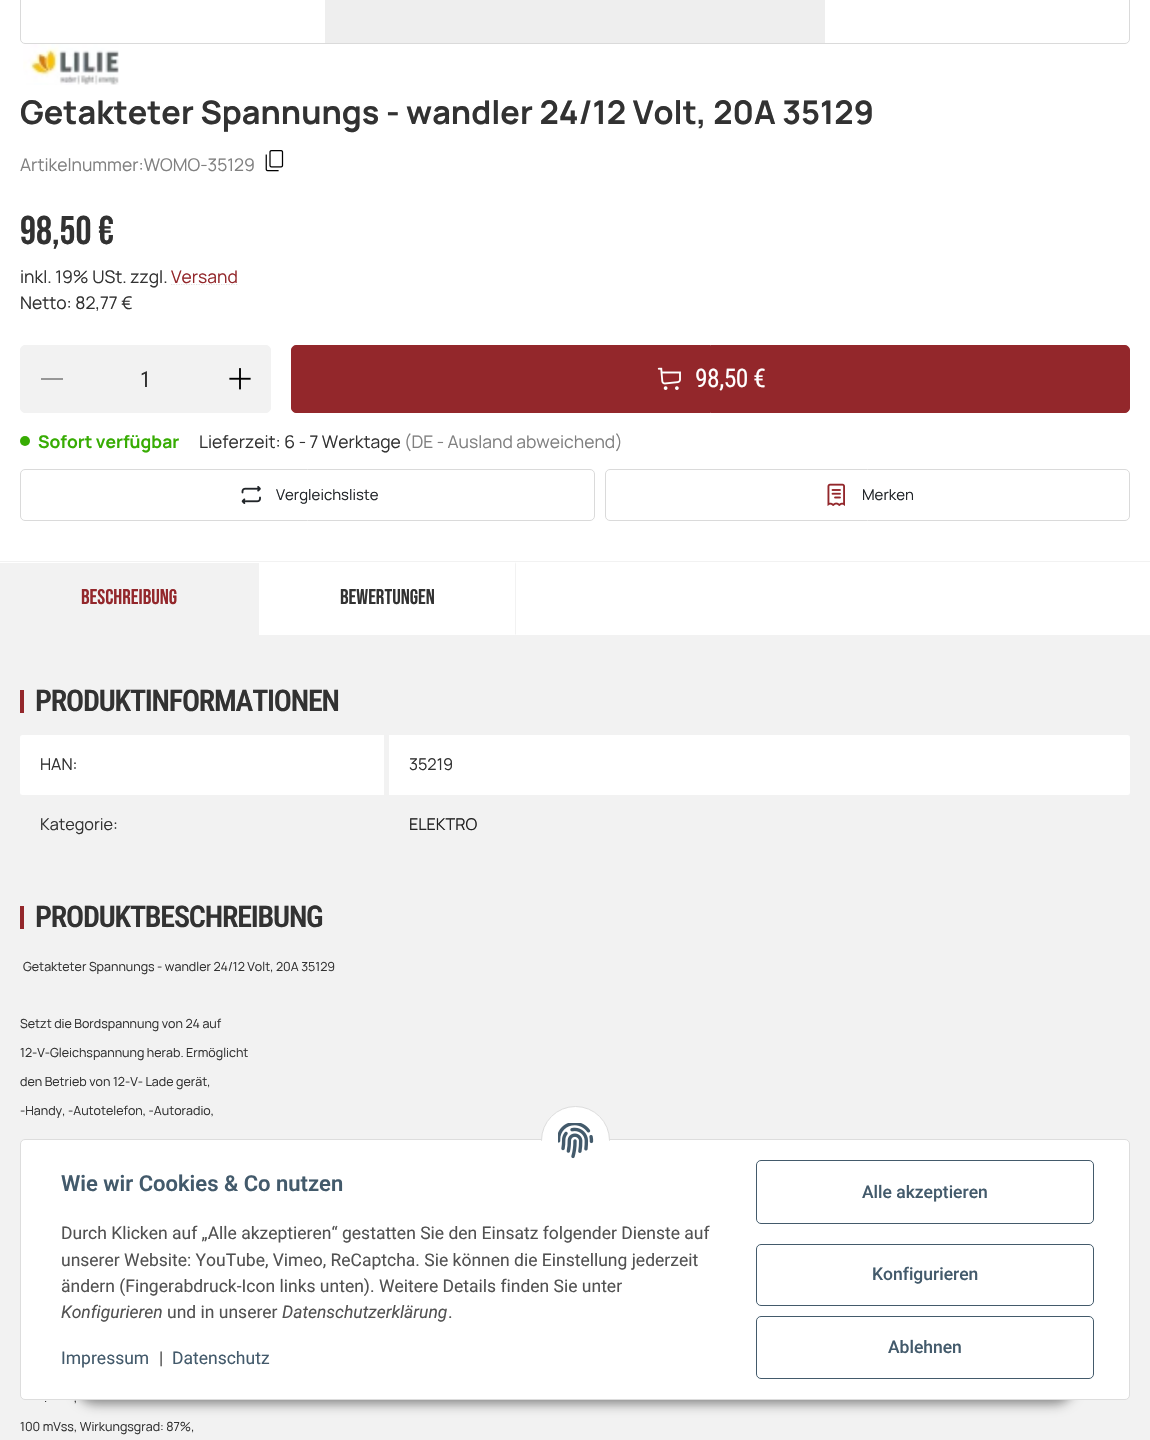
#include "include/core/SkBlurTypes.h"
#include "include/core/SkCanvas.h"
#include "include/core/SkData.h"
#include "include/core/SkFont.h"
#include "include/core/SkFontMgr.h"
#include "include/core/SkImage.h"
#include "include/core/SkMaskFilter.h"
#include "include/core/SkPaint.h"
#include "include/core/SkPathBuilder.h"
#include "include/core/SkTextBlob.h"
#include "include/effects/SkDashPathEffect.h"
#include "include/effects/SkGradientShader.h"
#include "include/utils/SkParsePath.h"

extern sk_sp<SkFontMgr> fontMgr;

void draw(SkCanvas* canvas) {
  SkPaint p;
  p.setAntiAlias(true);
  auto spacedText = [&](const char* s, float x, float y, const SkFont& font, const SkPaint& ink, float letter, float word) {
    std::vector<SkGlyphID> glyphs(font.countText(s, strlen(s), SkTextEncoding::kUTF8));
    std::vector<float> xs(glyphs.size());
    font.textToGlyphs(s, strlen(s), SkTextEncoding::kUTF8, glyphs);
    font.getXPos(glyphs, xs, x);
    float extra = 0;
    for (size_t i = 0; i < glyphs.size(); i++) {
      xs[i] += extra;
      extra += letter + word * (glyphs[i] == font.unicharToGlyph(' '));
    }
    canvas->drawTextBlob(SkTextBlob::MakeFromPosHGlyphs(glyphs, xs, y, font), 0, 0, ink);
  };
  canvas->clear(SkColorSetRGB(242, 242, 242));
  p.setColor(SK_ColorWHITE);
  canvas->drawRect(SkRect::MakeLTRB(0, 0, 1150, 561), p);
  p.setStyle(SkPaint::kStroke_Style);
  p.setStrokeWidth(1);
  p.setColor(SkColorSetRGB(218, 218, 218));
  canvas->drawRoundRect(SkRect::MakeLTRB(20.5f, -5.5f, 1129.5f, 43.5f), 4.5f, 4.5f, p);
  p.setStyle(SkPaint::kFill_Style);
  p.setColor(SkColorSetRGB(238, 238, 238));
  canvas->drawRect(SkRect::MakeLTRB(325, 0, 825, 43), p);
  canvas->drawImageRect(SkImages::DeferredFromEncodedData(SkData::MakeFromFileName("images/1.png")), SkRect::MakeLTRB(23, 44, 119, 85), SkSamplingOptions());
  canvas->drawImageRect(SkImages::DeferredFromEncodedData(SkData::MakeFromFileName("images/2.png")), SkRect::MakeLTRB(265, 150, 284, 172), SkSamplingOptions());
  p.setStyle(SkPaint::kStroke_Style);
  p.setStrokeWidth(1.2f);
  p.setColor(SkColorSetRGB(226, 226, 226));
  p.setPathEffect(SkDashPathEffect::Make({{1.25f, 1.25f}}, 0));
  canvas->drawPath(SkPathBuilder().moveTo(171, 284.5f).lineTo(238, 284.5f).detach(), p);
  p.setPathEffect(nullptr);
  p.setStyle(SkPaint::kFill_Style);
  p.setColor(SkColorSetRGB(242, 242, 242));
  canvas->drawRoundRect(SkRect::MakeLTRB(20.5f, 345.5f, 270.5f, 412.5f), 4.5f, 4.5f, p);
  p.setStyle(SkPaint::kStroke_Style);
  p.setStrokeWidth(1);
  canvas->drawRoundRect(SkRect::MakeLTRB(20.5f, 345.5f, 270.5f, 412.5f), 4.5f, 4.5f, p);
  p.setStyle(SkPaint::kFill_Style);
  p.setColor(SkColorSetRGB(151, 151, 151));
  canvas->drawRect(SkRect::MakeLTRB(41, 378, 63, 380), p);
  canvas->drawImageRect(SkImages::DeferredFromEncodedData(SkData::MakeFromFileName("images/3.png")), SkRect::MakeLTRB(229, 368, 251, 390), SkSamplingOptions());
  p.setColor(SkColorSetRGB(147, 39, 43));
  canvas->drawRoundRect(SkRect::MakeLTRB(291.5f, 345.5f, 1129.5f, 412.5f), 4.5f, 4.5f, p);
  p.setStyle(SkPaint::kStroke_Style);
  canvas->drawRoundRect(SkRect::MakeLTRB(291.5f, 345.5f, 1129.5f, 412.5f), 4.5f, 4.5f, p);
  canvas->drawImageRect(SkImages::DeferredFromEncodedData(SkData::MakeFromFileName("images/4.png")), SkRect::MakeLTRB(657, 367, 681, 390), SkSamplingOptions());
  p.setStyle(SkPaint::kFill_Style);
  p.setColor(SkColorSetRGB(55, 172, 3));
  canvas->drawCircle(25, 441, 5, p);
  p.setStyle(SkPaint::kStroke_Style);
  p.setColor(SkColorSetRGB(218, 218, 218));
  canvas->drawRoundRect(SkRect::MakeLTRB(20.5f, 469.5f, 594.5f, 520.5f), 4.5f, 4.5f, p);
  canvas->drawImageRect(SkImages::DeferredFromEncodedData(SkData::MakeFromFileName("images/5.png")), SkRect::MakeLTRB(241, 486, 261, 504), SkSamplingOptions());
  canvas->drawRoundRect(SkRect::MakeLTRB(605.5f, 469.5f, 1129.5f, 520.5f), 4.5f, 4.5f, p);
  canvas->drawImageRect(SkImages::DeferredFromEncodedData(SkData::MakeFromFileName("images/6.png")), SkRect::MakeLTRB(827, 483, 845, 506), SkSamplingOptions());
  p.setStyle(SkPaint::kFill_Style);
  p.setColor(SK_ColorWHITE);
  canvas->drawRect(SkRect::MakeLTRB(0, 562, 1150, 635), p);
  p.setColor(SkColorSetRGB(242, 242, 242));
  canvas->drawRect(SkRect::MakeLTRB(0, 563, 259, 635), p);
  canvas->drawPath(SkPathBuilder().moveTo(516, 562).lineTo(516, 635).lineTo(515, 634).lineTo(515, 564).close().detach(), p);
  p.setColor(SkColorSetRGB(147, 39, 43));
  canvas->drawRect(SkRect::MakeLTRB(20, 690, 24, 713), p);
  p.setColor(SK_ColorWHITE);
  canvas->drawRoundRect(SkRect::MakeLTRB(20, 735, 386, 795), 2.5f, 2.5f, p);
  canvas->drawRoundRect(SkRect::MakeLTRB(386, 735, 1130, 795), 2.5f, 2.5f, p);
  p.setColor(SkColorSetRGB(242, 242, 242));
  canvas->drawRect(SkRect::MakeLTRB(384, 735, 389, 798), p);
  p.setColor(SkColorSetRGB(147, 39, 43));
  canvas->drawRect(SkRect::MakeLTRB(20, 906, 24, 929), p);
  p.setColor(SkColorSetARGB(115, 0, 0, 0));
  p.setMaskFilter(SkMaskFilter::MakeBlur(kNormal_SkBlurStyle, 6));
  canvas->drawRoundRect(SkRect::MakeLTRB(76, 1364, 1074, 1404), 20, 20, p);
  p.setMaskFilter(nullptr);
  p.setColor(SK_ColorWHITE);
  canvas->drawRoundRect(SkRect::MakeLTRB(20.5f, 1139.5f, 1129.5f, 1399.5f), 4.5f, 4.5f, p);
  p.setStyle(SkPaint::kStroke_Style);
  p.setColor(SkColorSetRGB(221, 221, 221));
  canvas->drawRoundRect(SkRect::MakeLTRB(20.5f, 1139.5f, 1129.5f, 1399.5f), 4.5f, 4.5f, p);
  p.setStyle(SkPaint::kFill_Style);
  p.setColor(SK_ColorWHITE);
  canvas->drawCircle(575.5f, 1140.5f, 34, p);
  p.setStyle(SkPaint::kStroke_Style);
  p.setColor(SkColorSetRGB(221, 221, 221));
  canvas->drawCircle(575.5f, 1140.5f, 34, p);
  p.setStyle(SkPaint::kFill_Style);
  p.setColor(SK_ColorWHITE);
  canvas->drawRect(SkRect::MakeLTRB(541, 1141, 610, 1175), p);
  canvas->drawImageRect(SkImages::DeferredFromEncodedData(SkData::MakeFromFileName("images/7.png")), SkRect::MakeLTRB(558, 1123, 594, 1159), SkSamplingOptions());
  p.setStyle(SkPaint::kStroke_Style);
  p.setColor(SkColorSetRGB(67, 90, 107));
  canvas->drawRoundRect(SkRect::MakeLTRB(756.5f, 1160.5f, 1093.5f, 1223.5f), 4.5f, 4.5f, p);
  canvas->drawRoundRect(SkRect::MakeLTRB(756.5f, 1244.5f, 1093.5f, 1305.5f), 4.5f, 4.5f, p);
  canvas->drawRoundRect(SkRect::MakeLTRB(756.5f, 1316.5f, 1093.5f, 1378.5f), 4.5f, 4.5f, p);
  SkFont font1(fontMgr->matchFamilyStyle("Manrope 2", SkFontStyle(200, SkFontStyle::kNormal_Width, SkFontStyle::kUpright_Slant)), 32.5f);
  font1.setSubpixel(true);
  p.setStyle(SkPaint::kFill_Style);
  p.setColor(SkColorSetRGB(50, 50, 50));
  canvas->drawString("Getakteter Spannungs - wandler 24/12 Volt, 20A 35129", 20, 124, font1, p);
  SkFont font2(fontMgr->matchFamilyStyle("Manrope", SkFontStyle(200, SkFontStyle::kNormal_Width, SkFontStyle::kUpright_Slant)), 17.5f);
  font2.setSubpixel(true);
  p.setColor(SkColorSetRGB(128, 128, 128));
  canvas->drawString("Artikelnummer:WOMO-35129", 20, 171, font2, p);
  SkFont font3(fontMgr->matchFamilyStyle("Bebas Neue", SkFontStyle::Normal()), 40);
  font3.setSubpixel(true);
  p.setColor(SkColorSetRGB(50, 50, 50));
  canvas->drawString("98,50 €", 20, 244, font3, p);
  canvas->drawString("inkl. 19% USt. zzgl.", 20, 283, font2, p);
  p.setColor(SkColorSetRGB(147, 39, 43));
  canvas->drawString("Versand", 171, 283, font2, p);
  p.setColor(SkColorSetRGB(50, 50, 50));
  canvas->drawString("Netto: 82,77 €", 20, 309, font2, p);
  SkFont font4(fontMgr->matchFamilyStyle("Roboto Condensed", SkFontStyle::Normal()), 22);
  font4.setSubpixel(true);
  canvas->drawString("1", 140, 387, font4, p);
  SkFont font5(fontMgr->matchFamilyStyle("Roboto Condensed", SkFontStyle::Normal()), 25.5f);
  font5.setSubpixel(true);
  p.setColor(SK_ColorWHITE);
  spacedText("98,50 €", 695, 387, font5, p, -0.5f, 0);
  SkFont font6(fontMgr->matchFamilyStyle("Manrope 2", SkFontStyle(200, SkFontStyle::kNormal_Width, SkFontStyle::kUpright_Slant)), 17.5f);
  font6.setSubpixel(true);
  p.setColor(SkColorSetRGB(55, 172, 3));
  canvas->drawString("Sofort verfügbar", 38, 448, font6, p);
  p.setColor(SkColorSetRGB(50, 50, 50));
  canvas->drawString("Lieferzeit: 6 - 7 Werktage", 199, 448, font2, p);
  p.setColor(SkColorSetRGB(128, 128, 128));
  canvas->drawString("(DE - Ausland abweichend)", 404, 448, font2, p);
  SkFont font7(fontMgr->matchFamilyStyle("Manrope", SkFontStyle(200, SkFontStyle::kNormal_Width, SkFontStyle::kUpright_Slant)), 15);
  font7.setSubpixel(true);
  p.setColor(SkColorSetRGB(33, 37, 41));
  canvas->drawString("Vergleichsliste", 276, 500, font7, p);
  canvas->drawString("Merken", 862, 500, font7, p);
  SkFont font8(fontMgr->matchFamilyStyle("Bebas Neue", SkFontStyle::Normal()), 21.25f);
  font8.setSubpixel(true);
  p.setColor(SkColorSetRGB(147, 39, 43));
  canvas->drawString("BESCHREIBUNG", 81, 604, font8, p);
  p.setColor(SkColorSetRGB(50, 50, 50));
  canvas->drawString("BEWERTUNGEN", 340, 604, font8, p);
  SkFont font9(fontMgr->matchFamilyStyle("Roboto Condensed", SkFontStyle(600, SkFontStyle::kNormal_Width, SkFontStyle::kUpright_Slant)), 30);
  font9.setSubpixel(true);
  spacedText("PRODUKTINFORMATIONEN", 35, 711, font9, p, -1.2f, 0);
  SkFont font10(fontMgr->matchFamilyStyle("Manrope", SkFontStyle(200, SkFontStyle::kNormal_Width, SkFontStyle::kUpright_Slant)), 16.25f);
  font10.setSubpixel(true);
  canvas->drawString("HAN:", 40, 770, font10, p);
  canvas->drawString("35219", 409, 770, font10, p);
  canvas->drawString("Kategorie:", 40, 830, font10, p);
  p.setColor(SkColorSetRGB(34, 34, 34));
  canvas->drawString("ELEKTRO", 409, 830, font10, p);
  p.setColor(SkColorSetRGB(50, 50, 50));
  spacedText("PRODUKTBESCHREIBUNG", 35, 927, font9, p, -1.2f, 0);
  SkFont font11(fontMgr->matchFamilyStyle("Manrope", SkFontStyle(200, SkFontStyle::kNormal_Width, SkFontStyle::kUpright_Slant)), 12.5f);
  font11.setSubpixel(true);
  canvas->drawString("Getakteter Spannungs - wandler 24/12 Volt, 20A 35129", 23, 971, font11, p);
  canvas->drawString("Setzt die Bordspannung von 24 auf", 20, 1028, font11, p);
  canvas->drawString("12-V-Gleichspannung herab. Ermöglicht", 20, 1057, font11, p);
  canvas->drawString("den Betrieb von 12-V- Lade gerät,", 20, 1086, font11, p);
  canvas->drawString("-Handy, -Autotelefon, -Autoradio,", 20, 1115, font11, p);
  canvas->drawString(".", 44, 1402, font11, p);
  canvas->drawString(",", 74, 1402, font11, p);
  canvas->drawString("100 mVss, Wirkungsgrad: 87%,", 20, 1431, font11, p);
  SkFont font12(fontMgr->matchFamilyStyle("Roboto", SkFontStyle(600, SkFontStyle::kNormal_Width, SkFontStyle::kUpright_Slant)), 22);
  font12.setSubpixel(true);
  p.setColor(SkColorSetRGB(67, 90, 107));
  canvas->drawString("Wie wir Cookies & Co nutzen", 61, 1191, font12, p);
  SkFont font13(fontMgr->matchFamilyStyle("Roboto", SkFontStyle::Normal()), 17.5f);
  font13.setSubpixel(true);
  p.setColor(SkColorSetRGB(82, 82, 82));
  canvas->drawString("Durch Klicken auf „Alle akzeptieren“ gestatten Sie den Einsatz folgender Dienste auf", 61, 1239, font13, p);
  canvas->drawString("unserer Website: YouTube, Vimeo, ReCaptcha. Sie können die Einstellung jederzeit", 61, 1266, font13, p);
  canvas->drawString("ändern (Fingerabdruck-Icon links unten). Weitere Details finden Sie unter", 61, 1292, font13, p);
  SkFont font14(fontMgr->matchFamilyStyle("Roboto", SkFontStyle::Italic()), 17.5f);
  font14.setSubpixel(true);
  canvas->drawString("Konfigurieren", 61, 1318, font14, p);
  canvas->drawString("und in unserer", 167, 1318, font13, p);
  canvas->drawString("Datenschutzerklärung", 282, 1318, font14, p);
  canvas->drawString(".", 448, 1318, font13, p);
  p.setColor(SkColorSetRGB(67, 90, 107));
  canvas->drawString("Impressum", 61, 1364, font13, p);
  p.setColor(SkColorSetRGB(82, 82, 82));
  canvas->drawString("|", 159, 1364, font13, p);
  p.setColor(SkColorSetRGB(67, 90, 107));
  canvas->drawString("Datenschutz", 172, 1364, font13, p);
  SkFont font15(fontMgr->matchFamilyStyle("Roboto", SkFontStyle(500, SkFontStyle::kNormal_Width, SkFontStyle::kUpright_Slant)), 17.5f);
  font15.setSubpixel(true);
  canvas->drawString("Alle akzeptieren", 862, 1198, font15, p);
  canvas->drawString("Konfigurieren", 872, 1280, font15, p);
  canvas->drawString("Ablehnen", 888, 1353, font15, p);
}
